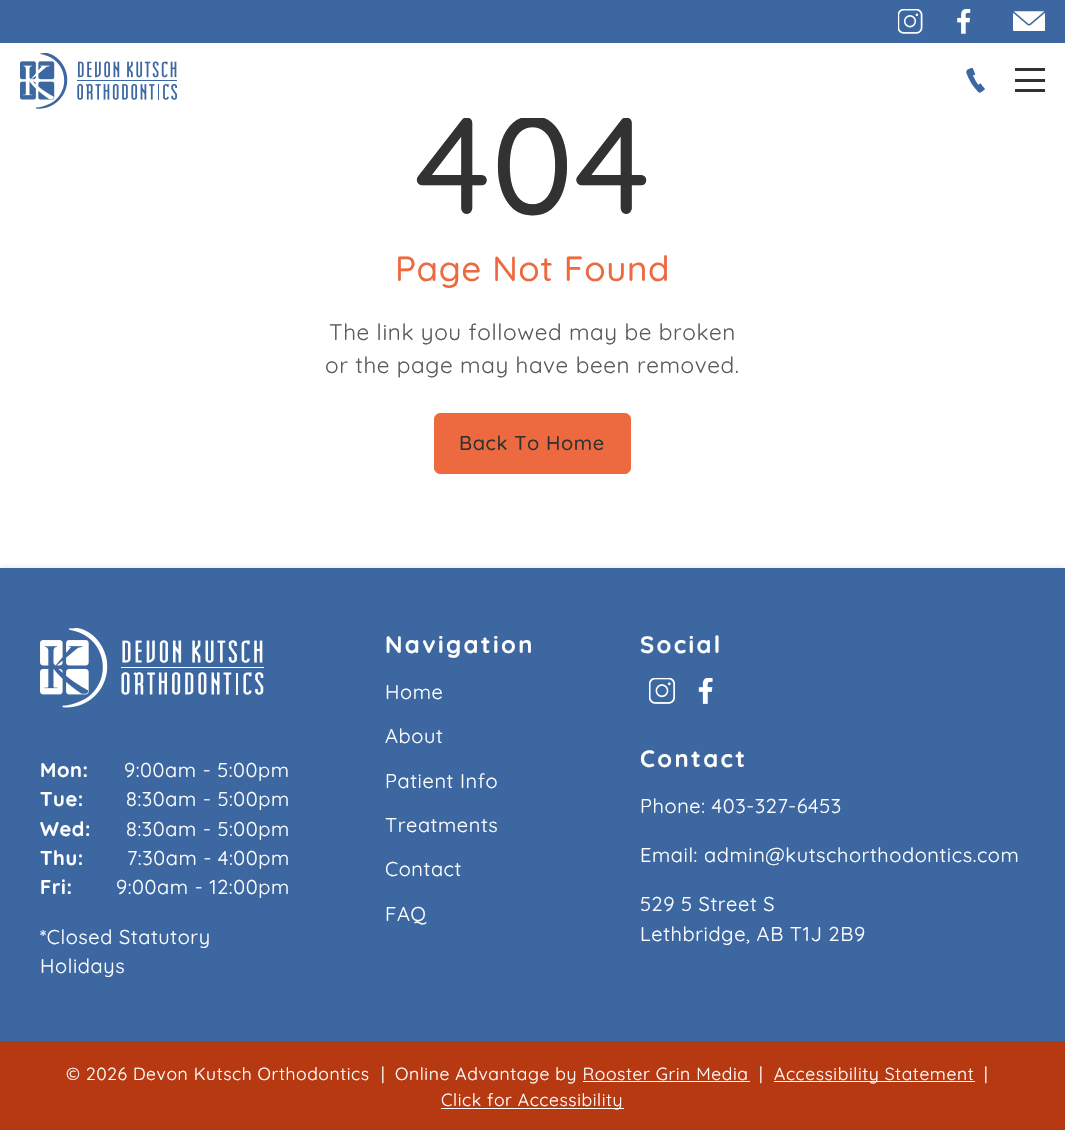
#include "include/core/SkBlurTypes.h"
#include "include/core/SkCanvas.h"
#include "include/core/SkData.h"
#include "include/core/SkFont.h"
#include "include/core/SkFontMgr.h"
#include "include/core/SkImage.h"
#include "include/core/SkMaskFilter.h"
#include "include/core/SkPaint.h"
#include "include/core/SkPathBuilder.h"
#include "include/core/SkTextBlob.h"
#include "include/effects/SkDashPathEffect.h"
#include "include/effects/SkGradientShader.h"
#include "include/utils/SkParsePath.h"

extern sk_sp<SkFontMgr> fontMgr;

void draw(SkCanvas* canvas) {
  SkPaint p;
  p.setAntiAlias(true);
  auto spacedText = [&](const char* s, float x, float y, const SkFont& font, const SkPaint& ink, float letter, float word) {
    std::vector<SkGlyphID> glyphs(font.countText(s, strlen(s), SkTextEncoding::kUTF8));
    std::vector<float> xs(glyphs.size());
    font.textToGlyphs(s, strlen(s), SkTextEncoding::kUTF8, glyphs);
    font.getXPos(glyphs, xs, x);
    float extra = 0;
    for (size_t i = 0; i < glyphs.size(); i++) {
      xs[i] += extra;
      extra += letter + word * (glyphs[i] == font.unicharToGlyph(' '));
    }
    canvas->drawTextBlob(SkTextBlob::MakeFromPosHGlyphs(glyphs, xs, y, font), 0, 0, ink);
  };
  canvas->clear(SK_ColorWHITE);
  p.setColor(SkColorSetRGB(60, 103, 161));
  canvas->drawRect(SkRect::MakeLTRB(0, 0, 1065, 43), p);
  canvas->drawImageRect(SkImages::DeferredFromEncodedData(SkData::MakeFromFileName("images/1.png")), SkRect::MakeLTRB(898, 9, 923, 34), SkSamplingOptions());
  canvas->drawImageRect(SkImages::DeferredFromEncodedData(SkData::MakeFromFileName("images/2.png")), SkRect::MakeLTRB(957, 9, 971, 34), SkSamplingOptions());
  canvas->drawImageRect(SkImages::DeferredFromEncodedData(SkData::MakeFromFileName("images/3.png")), SkRect::MakeLTRB(1013, 11, 1045, 31), SkSamplingOptions());
  canvas->drawImageRect(SkImages::DeferredFromEncodedData(SkData::MakeFromFileName("images/4.png")), SkRect::MakeLTRB(20, 53, 178, 109), SkSamplingOptions());
  canvas->drawImageRect(SkImages::DeferredFromEncodedData(SkData::MakeFromFileName("images/5.png")), SkRect::MakeLTRB(966, 68, 985, 93), SkSamplingOptions());
  p.setColor(SkColorSetRGB(50, 50, 50));
  canvas->drawRect(SkRect::MakeLTRB(1015, 68, 1045, 71), p);
  canvas->drawRect(SkRect::MakeLTRB(1015, 79, 1045, 82), p);
  canvas->drawRect(SkRect::MakeLTRB(1015, 89, 1045, 92), p);
  p.setColor(SkColorSetRGB(237, 106, 64));
  canvas->drawRoundRect(SkRect::MakeLTRB(434.5f, 413.5f, 630.5f, 473.5f), 5.5f, 5.5f, p);
  p.setStyle(SkPaint::kStroke_Style);
  p.setStrokeWidth(1);
  canvas->drawRoundRect(SkRect::MakeLTRB(434.5f, 413.5f, 630.5f, 473.5f), 5.5f, 5.5f, p);
  p.setStyle(SkPaint::kFill_Style);
  p.setColor(SkColorSetARGB(38, 50, 50, 50));
  p.setMaskFilter(SkMaskFilter::MakeBlur(kNormal_SkBlurStyle, 3));
  canvas->drawRect(SkRect::MakeLTRB(0, 568, 1065, 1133), p);
  p.setMaskFilter(nullptr);
  p.setColor(SkColorSetRGB(60, 103, 161));
  canvas->drawRect(SkRect::MakeLTRB(0, 568, 1065, 1041), p);
  canvas->drawImageRect(SkImages::DeferredFromEncodedData(SkData::MakeFromFileName("images/6.png")), SkRect::MakeLTRB(40, 628, 264, 708), SkSamplingOptions());
  canvas->drawImageRect(SkImages::DeferredFromEncodedData(SkData::MakeFromFileName("images/7.png")), SkRect::MakeLTRB(649, 678, 675, 704), SkSamplingOptions());
  canvas->drawImageRect(SkImages::DeferredFromEncodedData(SkData::MakeFromFileName("images/8.png")), SkRect::MakeLTRB(698, 678, 713, 704), SkSamplingOptions());
  p.setColor(SkColorSetRGB(182, 57, 17));
  canvas->drawRect(SkRect::MakeLTRB(0, 1041, 1065, 1130), p);
  p.setColor(SK_ColorWHITE);
  canvas->drawRect(SkRect::MakeLTRB(583, 1081, 750, 1082), p);
  canvas->drawRect(SkRect::MakeLTRB(774, 1081, 975, 1082), p);
  canvas->drawRect(SkRect::MakeLTRB(441, 1108, 624, 1109), p);
  SkFont font1(fontMgr->matchFamilyStyle("Quicksand", SkFontStyle(500, SkFontStyle::kNormal_Width, SkFontStyle::kUpright_Slant)), 138);
  font1.setSubpixel(true);
  p.setColor(SkColorSetRGB(50, 50, 50));
  spacedText("404", 415, 214, font1, p, 0.6f, 0);
  p.setColor(SK_ColorWHITE);
  canvas->drawRect(SkRect::MakeLTRB(465, 116, 628, 118), p);
  SkFont font2(fontMgr->matchFamilyStyle("Quicksand", SkFontStyle(500, SkFontStyle::kNormal_Width, SkFontStyle::kUpright_Slant)), 35);
  font2.setSubpixel(true);
  p.setColor(SkColorSetRGB(237, 106, 64));
  spacedText("Page Not Found", 395, 281, font2, p, 0.6f, 0);
  SkFont font3(fontMgr->matchFamilyStyle("Quicksand", SkFontStyle::Normal()), 22.5f);
  font3.setSubpixel(true);
  p.setColor(SkColorSetRGB(89, 89, 95));
  spacedText("The link you followed may be broken", 329, 340, font3, p, 0.6f, 0);
  spacedText("or the page may have been removed.", 325, 373, font3, p, 0.6f, 0);
  SkFont font4(fontMgr->matchFamilyStyle("Quicksand", SkFontStyle(500, SkFontStyle::kNormal_Width, SkFontStyle::kUpright_Slant)), 20);
  font4.setSubpixel(true);
  p.setColor(SkColorSetRGB(50, 50, 50));
  spacedText("Back To Home", 459, 450, font4, p, 0.6f, 0);
  SkFont font5(fontMgr->matchFamilyStyle("Quicksand", SkFontStyle::Bold()), 20);
  font5.setSubpixel(true);
  p.setColor(SK_ColorWHITE);
  spacedText("Mon:", 40, 777, font5, p, 0.6f, 0);
  SkFont font6(fontMgr->matchFamilyStyle("Quicksand", SkFontStyle::Normal()), 20);
  font6.setSubpixel(true);
  spacedText("9:00am - 5:00pm", 124, 777, font6, p, 0.6f, 0);
  spacedText("Tue:", 40, 806, font5, p, 0.6f, 0);
  spacedText("8:30am - 5:00pm", 126, 806, font6, p, 0.6f, 0);
  spacedText("Wed:", 40, 836, font5, p, 0.6f, 0);
  spacedText("8:30am - 5:00pm", 126, 836, font6, p, 0.6f, 0);
  spacedText("Thu:", 40, 865, font5, p, 0.6f, 0);
  spacedText("7:30am - 4:00pm", 127, 865, font6, p, 0.6f, 0);
  spacedText("Fri:", 40, 894, font5, p, 0.6f, 0);
  spacedText("9:00am - 12:00pm", 116, 894, font6, p, 0.6f, 0);
  spacedText("*Closed Statutory", 40, 944, font6, p, 0.6f, 0);
  spacedText("Holidays", 40, 973, font6, p, 0.6f, 0);
  SkFont font7(fontMgr->matchFamilyStyle("Quicksand", SkFontStyle::Bold()), 23.75f);
  font7.setSubpixel(true);
  spacedText("Navigation", 385, 653, font7, p, 2.4f, 0);
  spacedText("Home", 385, 699, font6, p, 0.6f, 0);
  spacedText("About", 385, 743, font6, p, 0.6f, 0);
  spacedText("Patient Info", 385, 788, font6, p, 0.6f, 0);
  spacedText("Treatments", 385, 832, font6, p, 0.6f, 0);
  spacedText("Contact", 385, 876, font6, p, 0.6f, 0);
  spacedText("FAQ", 385, 921, font6, p, 0.6f, 0);
  spacedText("Social", 640, 653, font7, p, 2.4f, 0);
  spacedText("Contact", 640, 767, font7, p, 2.4f, 0);
  spacedText("Phone: 403-327-6453", 640, 813, font6, p, 0.6f, 0);
  spacedText("Email: admin@kutschorthodontics.com", 640, 862, font6, p, 0.6f, 0);
  spacedText("529 5 Street S", 640, 911, font6, p, 0.6f, 0);
  spacedText("Lethbridge, AB T1J 2B9", 640, 941, font6, p, 0.6f, 0);
  SkFont font8(fontMgr->matchFamilyStyle("Quicksand", SkFontStyle::Normal()), 17.5f);
  font8.setSubpixel(true);
  spacedText("© 2026 Devon Kutsch Orthodontics", 66, 1080, font8, p, 0.6f, 0);
  spacedText("|", 381, 1080, font8, p, 0.6f, 0);
  spacedText("Online Advantage by Rooster Grin Media", 395, 1080, font8, p, 0.6f, 0);
  spacedText("|", 759, 1080, font8, p, 0.6f, 0);
  spacedText("Accessibility Statement", 774, 1080, font8, p, 0.6f, 0);
  spacedText("|", 984, 1080, font8, p, 0.6f, 0);
  spacedText("Click for Accessibility", 441, 1106, font8, p, 0.6f, 0);
}
